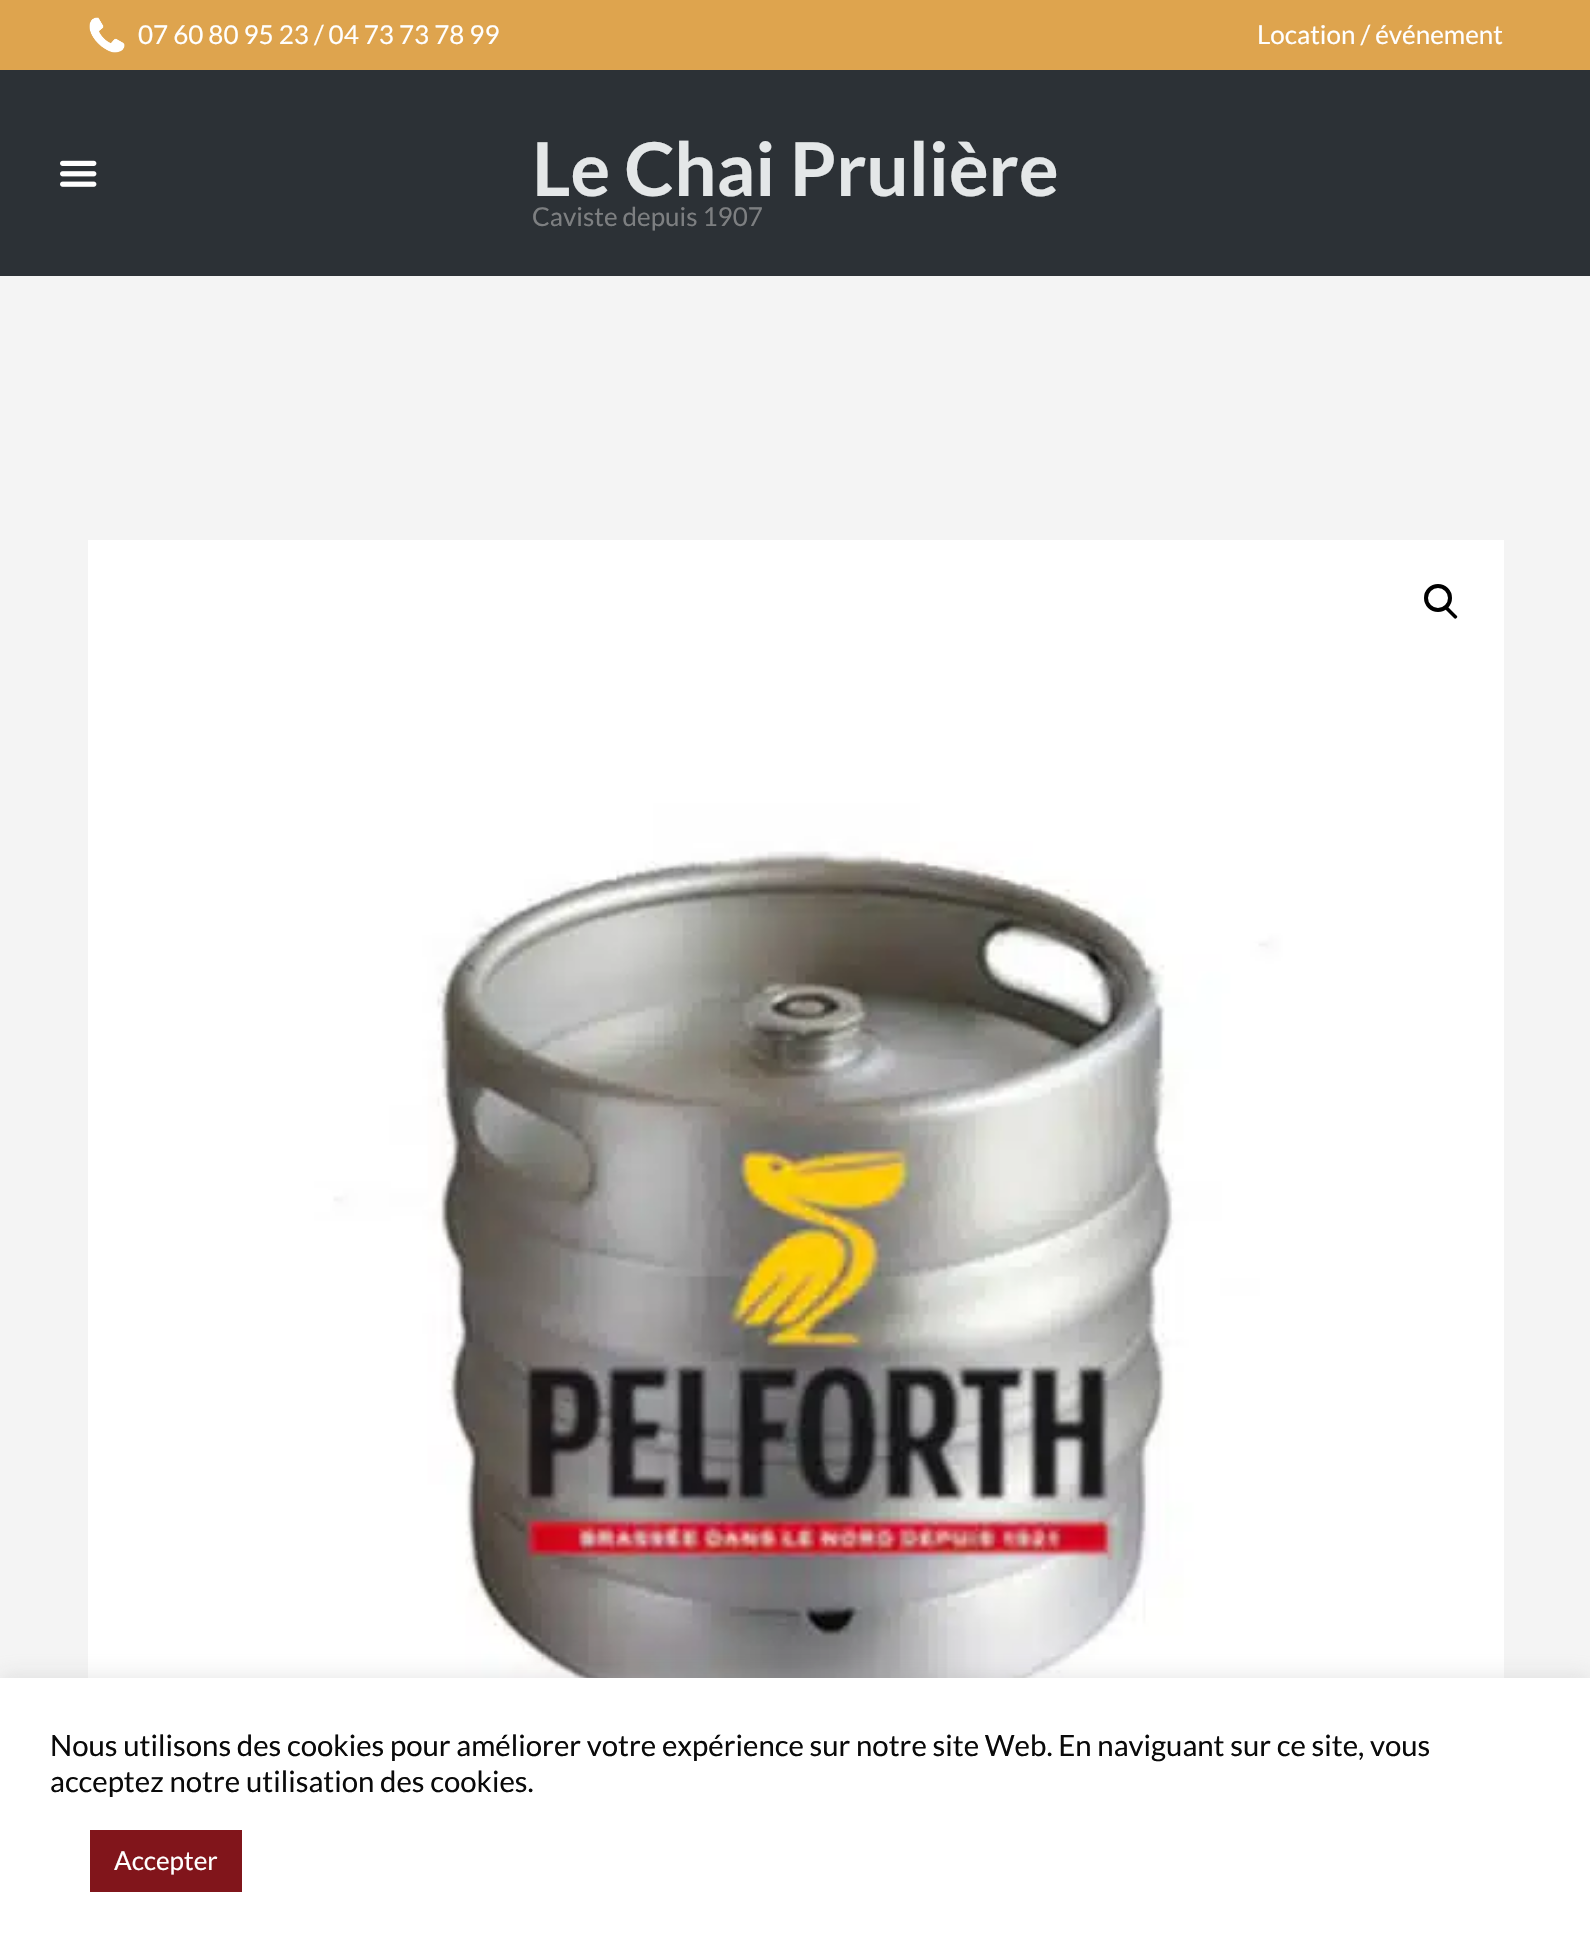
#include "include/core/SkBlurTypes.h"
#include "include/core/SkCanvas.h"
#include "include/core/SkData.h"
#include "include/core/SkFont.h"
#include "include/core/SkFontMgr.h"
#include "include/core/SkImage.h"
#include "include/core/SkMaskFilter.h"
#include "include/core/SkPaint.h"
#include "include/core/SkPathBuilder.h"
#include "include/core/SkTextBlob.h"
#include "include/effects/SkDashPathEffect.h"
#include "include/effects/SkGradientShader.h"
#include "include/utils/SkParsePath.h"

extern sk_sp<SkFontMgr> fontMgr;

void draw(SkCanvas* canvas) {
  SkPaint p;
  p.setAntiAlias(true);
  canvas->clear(SkColorSetRGB(244, 244, 244));
  p.setColor(SkColorSetRGB(222, 164, 78));
  canvas->drawRect(SkRect::MakeLTRB(0, 0, 1590, 70), p);
  canvas->drawImageRect(SkImages::DeferredFromEncodedData(SkData::MakeFromFileName("images/1.png")), SkRect::MakeLTRB(89, 17, 125, 53), SkSamplingOptions());
  p.setColor(SkColorSetRGB(44, 49, 54));
  canvas->drawRect(SkRect::MakeLTRB(0, 70, 1590, 276), p);
  canvas->drawImageRect(SkImages::DeferredFromEncodedData(SkData::MakeFromFileName("images/2.png")), SkRect::MakeLTRB(60, 160, 97, 187), SkSamplingOptions());
  canvas->drawImageRect(SkImages::DeferredFromEncodedData(SkData::MakeFromFileName("images/3.png")), SkRect::MakeLTRB(88, 540, 1504, 1678), SkSamplingOptions());
  p.setStyle(SkPaint::kStroke_Style);
  p.setStrokeWidth(4);
  p.setColor(SK_ColorBLACK);
  canvas->drawCircle(1438, 598, 12, p);
  p.setStyle(SkPaint::kFill_Style);
  canvas->drawPath(SkPathBuilder().moveTo(1445.5f, 607).cubicTo(1446, 606, 1447.5f, 606, 1448, 607).lineTo(1456.5f, 615.5f).cubicTo(1457.5f, 616, 1457.5f, 617.5f, 1456.5f, 618).cubicTo(1456, 619, 1454.5f, 619, 1454, 618).lineTo(1445.5f, 609.5f).cubicTo(1444.5f, 609, 1444.5f, 607.5f, 1445.5f, 607).close().detach(), p);
  p.setColor(SkColorSetARGB(77, 172, 171, 171));
  p.setMaskFilter(SkMaskFilter::MakeBlur(kNormal_SkBlurStyle, 10));
  canvas->drawRect(SkRect::MakeLTRB(0, 1676, 1590, 1950), p);
  p.setMaskFilter(nullptr);
  p.setColor(SK_ColorWHITE);
  canvas->drawRect(SkRect::MakeLTRB(0, 1678, 1590, 1952), p);
  p.setColor(SkColorSetRGB(129, 21, 27));
  canvas->drawRect(SkRect::MakeLTRB(90, 1830, 242, 1892), p);
  SkFont font1(fontMgr->matchFamilyStyle("Lato", SkFontStyle::Normal()), 26);
  font1.setSubpixel(true);
  p.setColor(SK_ColorWHITE);
  canvas->drawString("07 60 80 95 23 / 04 73 73 78 99", 138, 44, font1, p);
  canvas->drawString("Location / événement", 1257, 44, font1, p);
  SkFont font2(fontMgr->matchFamilyStyle("Lato", SkFontStyle::Bold()), 74.25f);
  font2.setSubpixel(true);
  p.setColor(SkColorSetRGB(228, 231, 232));
  canvas->drawString("Le Chai Prulière", 532, 196, font2, p);
  p.setColor(SkColorSetRGB(125, 127, 129));
  canvas->drawString("Caviste depuis 1907", 532, 226, font1, p);
  SkFont font3(fontMgr->matchFamilyStyle("Lato", SkFontStyle::Normal()), 29.35f);
  font3.setSubpixel(true);
  p.setColor(SkColorSetRGB(10, 10, 10));
  canvas->drawString("Nous utilisons des cookies pour améliorer votre expérience sur notre site Web. En naviguant sur ce site, vous", 50, 1756, font3, p);
  canvas->drawString("acceptez notre utilisation des cookies.", 50, 1792, font3, p);
  p.setColor(SK_ColorWHITE);
  canvas->drawString("Accepter", 114, 1870, font1, p);
}
